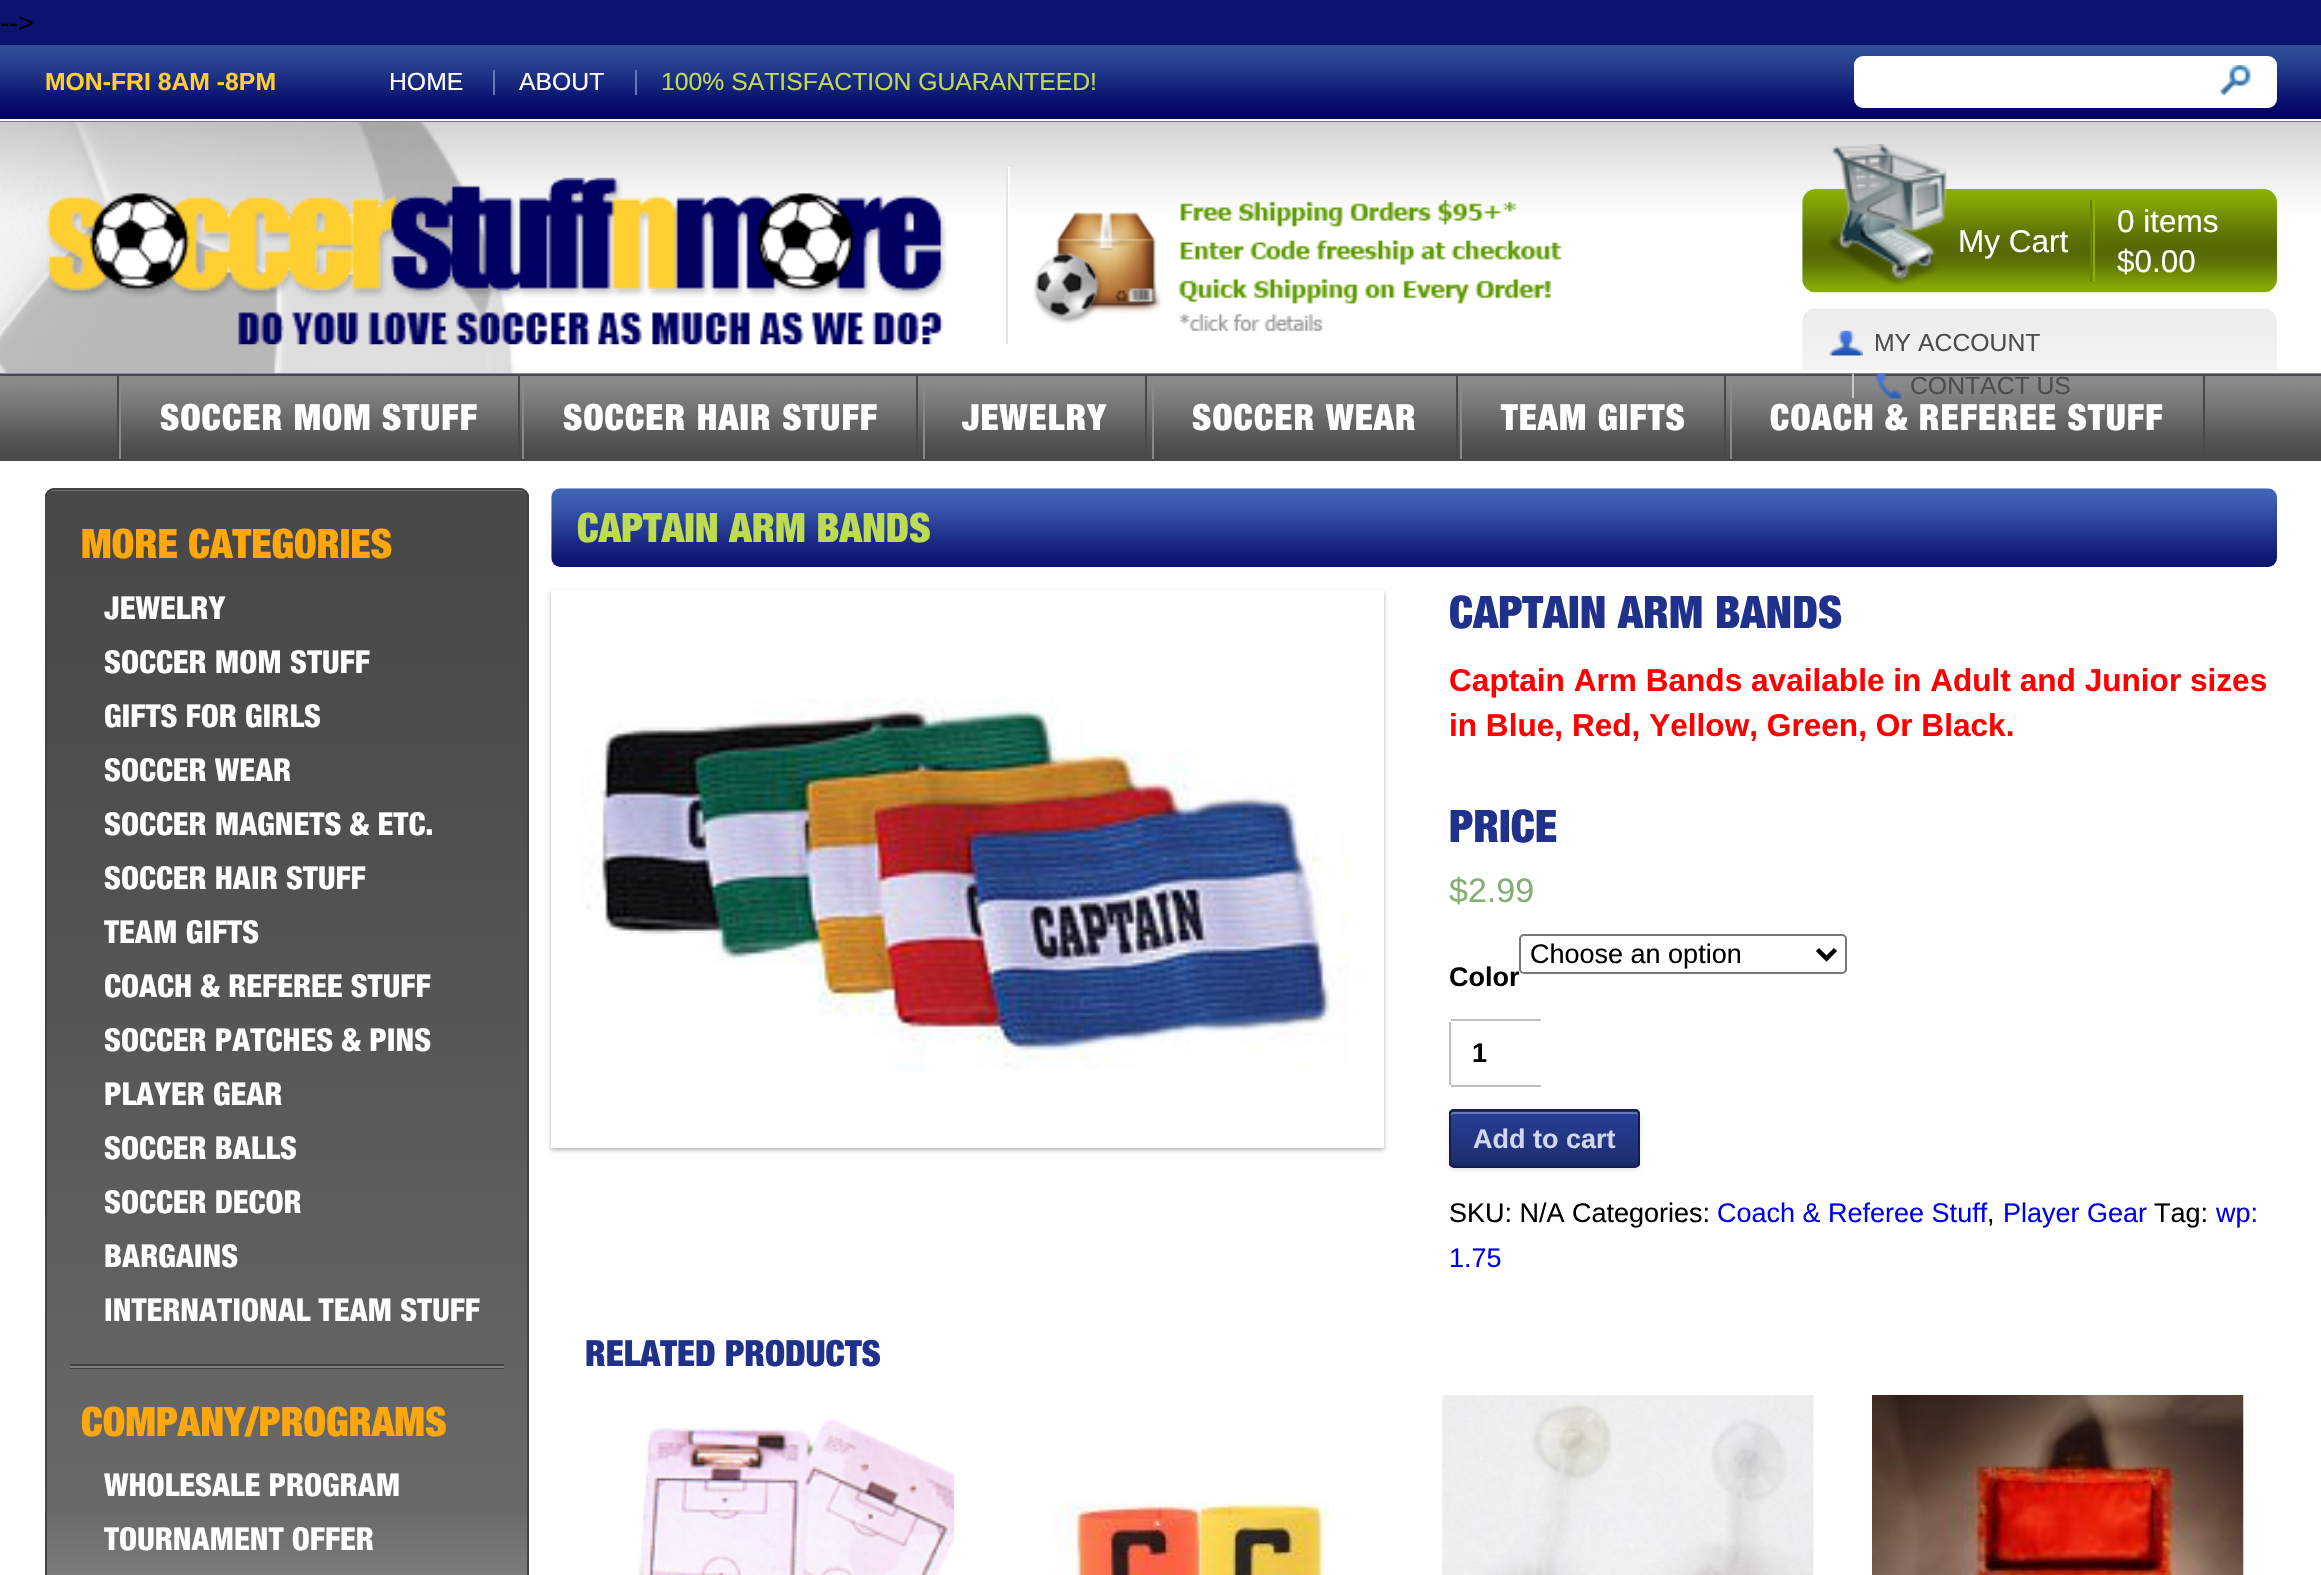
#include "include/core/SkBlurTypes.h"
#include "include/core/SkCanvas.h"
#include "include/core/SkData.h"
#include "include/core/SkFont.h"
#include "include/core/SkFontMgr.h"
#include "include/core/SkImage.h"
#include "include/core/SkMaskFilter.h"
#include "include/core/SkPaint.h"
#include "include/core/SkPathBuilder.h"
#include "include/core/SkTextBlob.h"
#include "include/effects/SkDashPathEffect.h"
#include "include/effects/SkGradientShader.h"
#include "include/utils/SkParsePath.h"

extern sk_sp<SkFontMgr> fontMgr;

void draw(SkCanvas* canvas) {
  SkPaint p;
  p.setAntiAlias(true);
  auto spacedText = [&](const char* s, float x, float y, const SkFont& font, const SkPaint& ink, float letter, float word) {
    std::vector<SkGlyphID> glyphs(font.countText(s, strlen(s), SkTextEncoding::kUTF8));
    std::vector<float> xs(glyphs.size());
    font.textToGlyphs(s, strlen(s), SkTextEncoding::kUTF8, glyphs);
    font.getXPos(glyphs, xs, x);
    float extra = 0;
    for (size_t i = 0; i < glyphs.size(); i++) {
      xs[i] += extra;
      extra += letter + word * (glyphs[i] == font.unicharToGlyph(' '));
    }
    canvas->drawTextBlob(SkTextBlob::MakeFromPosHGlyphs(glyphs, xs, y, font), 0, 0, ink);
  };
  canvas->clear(SkColorSetRGB(11, 18, 111));
  canvas->drawImageRect(SkImages::DeferredFromEncodedData(SkData::MakeFromFileName("images/1.png")), SkRect::MakeLTRB(0, 45, 2321, 119), SkSamplingOptions());
  p.setColor(SkColorSetRGB(97, 122, 187));
  canvas->drawRect(SkRect::MakeLTRB(493, 70, 495, 95), p);
  canvas->drawRect(SkRect::MakeLTRB(635, 70, 637, 95), p);
  p.setColor(SK_ColorWHITE);
  canvas->drawRoundRect(SkRect::MakeLTRB(1855, 57, 2276, 107), 8, 8, p);
  p.setStyle(SkPaint::kStroke_Style);
  p.setStrokeWidth(2);
  canvas->drawRoundRect(SkRect::MakeLTRB(1855, 57, 2276, 107), 8, 8, p);
  canvas->drawImageRect(SkImages::DeferredFromEncodedData(SkData::MakeFromFileName("images/2.png")), SkRect::MakeLTRB(2220, 65, 2251, 96), SkSamplingOptions());
  canvas->drawImageRect(SkImages::DeferredFromEncodedData(SkData::MakeFromFileName("images/3.png")), SkRect::MakeLTRB(0, 121, 2321, 374), SkSamplingOptions());
  p.setStyle(SkPaint::kFill_Style);
  canvas->drawRect(SkRect::MakeLTRB(0, 119, 2321, 121), p);
  canvas->drawImageRect(SkImages::DeferredFromEncodedData(SkData::MakeFromFileName("images/4.png")), SkRect::MakeLTRB(0, 121, 514, 374), SkSamplingOptions());
  p.setColor(SkColorSetRGB(227, 227, 227));
  canvas->drawRect(SkRect::MakeLTRB(1006, 167, 1008, 344), p);
  canvas->drawImageRect(SkImages::DeferredFromEncodedData(SkData::MakeFromFileName("images/5.png")), SkRect::MakeLTRB(46, 177, 947, 345), SkSamplingOptions());
  p.setColor(SK_ColorWHITE);
  canvas->drawRect(SkRect::MakeLTRB(1008, 167, 1010, 211), p);
  canvas->drawImageRect(SkImages::DeferredFromEncodedData(SkData::MakeFromFileName("images/6.png")), SkRect::MakeLTRB(1033, 200, 1562, 331), SkSamplingOptions());
  canvas->drawImageRect(SkImages::DeferredFromEncodedData(SkData::MakeFromFileName("images/7.png")), SkRect::MakeLTRB(1802, 189, 2277, 293), SkSamplingOptions());
  canvas->drawImageRect(SkImages::DeferredFromEncodedData(SkData::MakeFromFileName("images/8.png")), SkRect::MakeLTRB(1828, 144, 1947, 286), SkSamplingOptions());
  p.setColor(SkColorSetRGB(104, 131, 5));
  canvas->drawRect(SkRect::MakeLTRB(2090, 200, 2092, 281), p);
  p.setColor(SkColorSetRGB(138, 175, 6));
  canvas->drawRect(SkRect::MakeLTRB(2093, 200, 2095, 281), p);
  canvas->drawImageRect(SkImages::DeferredFromEncodedData(SkData::MakeFromFileName("images/9.png")), SkRect::MakeLTRB(1802, 308, 2277, 371), SkSamplingOptions());
  canvas->drawImageRect(SkImages::DeferredFromEncodedData(SkData::MakeFromFileName("images/10.png")), SkRect::MakeLTRB(1829, 330, 1863, 356), SkSamplingOptions());
  canvas->drawImageRect(SkImages::DeferredFromEncodedData(SkData::MakeFromFileName("images/12.png")), SkRect::MakeLTRB(0, 376, 2321, 461), SkSamplingOptions());
  p.setColor(SkColorSetRGB(73, 73, 73));
  canvas->drawRect(SkRect::MakeLTRB(0, 374, 2321, 376), p);
  canvas->drawImageRect(SkImages::DeferredFromEncodedData(SkData::MakeFromFileName("images/11.png")), SkRect::MakeLTRB(1876, 373, 1902, 399), SkSamplingOptions());
  p.setColor(SkColorSetRGB(201, 201, 201));
  canvas->drawRect(SkRect::MakeLTRB(1852, 374, 1854, 398), p);
  p.setColor(SkColorSetRGB(73, 73, 73));
  canvas->drawRect(SkRect::MakeLTRB(117, 376, 119, 461), p);
  canvas->drawRect(SkRect::MakeLTRB(518, 376, 520, 459), p);
  p.setColor(SkColorSetRGB(137, 137, 137));
  canvas->drawRect(SkRect::MakeLTRB(119, 385, 121, 459), p);
  p.setColor(SkColorSetRGB(73, 73, 73));
  canvas->drawRect(SkRect::MakeLTRB(916, 376, 918, 459), p);
  p.setColor(SkColorSetRGB(137, 137, 137));
  canvas->drawRect(SkRect::MakeLTRB(522, 385, 524, 459), p);
  p.setColor(SkColorSetRGB(73, 73, 73));
  canvas->drawRect(SkRect::MakeLTRB(1145, 376, 1147, 459), p);
  p.setColor(SkColorSetRGB(137, 137, 137));
  canvas->drawRect(SkRect::MakeLTRB(923, 385, 925, 459), p);
  p.setColor(SkColorSetRGB(73, 73, 73));
  canvas->drawRect(SkRect::MakeLTRB(1456, 376, 1458, 459), p);
  p.setColor(SkColorSetRGB(137, 137, 137));
  canvas->drawRect(SkRect::MakeLTRB(1152, 385, 1154, 459), p);
  p.setColor(SkColorSetRGB(73, 73, 73));
  canvas->drawRect(SkRect::MakeLTRB(1724, 376, 1726, 459), p);
  p.setColor(SkColorSetRGB(137, 137, 137));
  canvas->drawRect(SkRect::MakeLTRB(1460, 385, 1462, 459), p);
  p.setColor(SkColorSetRGB(73, 73, 73));
  canvas->drawRect(SkRect::MakeLTRB(2203, 376, 2205, 459), p);
  p.setColor(SkColorSetRGB(137, 137, 137));
  canvas->drawRect(SkRect::MakeLTRB(1730, 385, 1732, 459), p);
  p.setColor(SK_ColorWHITE);
  canvas->drawRect(SkRect::MakeLTRB(0, 461, 2321, 1575), p);
  p.setColor(SkColorSetRGB(139, 139, 139));
  canvas->drawRoundRect(SkRect::MakeLTRB(45, 488, 529, 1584), 9, 9, p);
  canvas->drawImageRect(SkImages::DeferredFromEncodedData(SkData::MakeFromFileName("images/13.png")), SkRect::MakeLTRB(45, 490, 529, 1575), SkSamplingOptions());
  p.setStyle(SkPaint::kStroke_Style);
  p.setColor(SkColorSetRGB(67, 67, 67));
  canvas->drawRoundRect(SkRect::MakeLTRB(46, 489, 528, 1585), 8, 8, p);
  p.setStyle(SkPaint::kFill_Style);
  canvas->drawRect(SkRect::MakeLTRB(70, 1364, 504, 1369), p);
  p.setColor(SkColorSetRGB(126, 126, 126));
  canvas->drawRect(SkRect::MakeLTRB(70, 1366, 504, 1368), p);
  canvas->drawImageRect(SkImages::DeferredFromEncodedData(SkData::MakeFromFileName("images/14.png")), SkRect::MakeLTRB(551, 488, 2277, 567), SkSamplingOptions());
  canvas->save();
  canvas->clipPath(SkPathBuilder(SkPathFillType::kEvenOdd).moveTo(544, 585).lineTo(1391, 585).lineTo(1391, 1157).lineTo(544, 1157).close().moveTo(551, 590).lineTo(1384, 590).lineTo(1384, 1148).lineTo(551, 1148).close().detach(), true);
  p.setColor(SkColorSetARGB(77, 0, 0, 0));
  p.setMaskFilter(SkMaskFilter::MakeBlur(kNormal_SkBlurStyle, 2));
  canvas->drawRect(SkRect::MakeLTRB(551, 592, 1384, 1150), p);
  p.setMaskFilter(nullptr);
  canvas->restore();
  p.setStyle(SkPaint::kStroke_Style);
  p.setColor(SK_ColorWHITE);
  canvas->drawRect(SkRect::MakeLTRB(552, 591, 1383, 1147), p);
  canvas->drawImageRect(SkImages::DeferredFromEncodedData(SkData::MakeFromFileName("images/15.png")), SkRect::MakeLTRB(581, 697, 1349, 1070), SkSamplingOptions());
  p.setColor(SkColorSetRGB(118, 118, 118));
  canvas->drawRoundRect(SkRect::MakeLTRB(1520, 935, 1846, 973), 4, 4, p);
  p.setStrokeWidth(4.5f);
  p.setColor(SK_ColorBLACK);
  canvas->drawPath(SkPathBuilder().moveTo(1817.5f, 949.5f).lineTo(1826.5f, 958.5f).lineTo(1835.5f, 949.5f).detach(), p);
  p.setStyle(SkPaint::kFill_Style);
  p.setColor(SkColorSetRGB(191, 191, 191));
  canvas->drawRect(SkRect::MakeLTRB(1451, 1019, 1541, 1021), p);
  canvas->drawRect(SkRect::MakeLTRB(1451, 1085, 1541, 1087), p);
  canvas->drawRect(SkRect::MakeLTRB(1449, 1022, 1451, 1085), p);
  p.setColor(SkColorSetARGB(26, 0, 0, 0));
  p.setMaskFilter(SkMaskFilter::MakeBlur(kNormal_SkBlurStyle, 2));
  canvas->drawRoundRect(SkRect::MakeLTRB(1449, 1112, 1640, 1170), 5, 5, p);
  p.setMaskFilter(nullptr);
  canvas->save();
  canvas->clipPath(SkPathBuilder().moveTo(1454, 1109).lineTo(1635, 1109).cubicTo(1638, 1109, 1640, 1111, 1640, 1114).lineTo(1640, 1163).cubicTo(1640, 1166, 1638, 1168, 1635, 1168).lineTo(1454, 1168).cubicTo(1451, 1168, 1449, 1166, 1449, 1163).lineTo(1449, 1114).cubicTo(1449, 1111, 1451, 1109, 1454, 1109).close().detach(), true);
  {
    const SkColor colors[] = {SkColorSetRGB(40, 62, 150), SkColorSetRGB(29, 45, 110)};
    const float stops[] = {0, 1};
    const SkPoint ends[] = {{1545, 1058}, {1545, 1112}};
    p.setShader(SkGradientShader::MakeLinear(ends, colors, stops, 2, SkTileMode::kClamp));
    p.setAlpha(255);
  }
  canvas->drawRect(SkRect::MakeLTRB(1449, 1109, 1640, 1112), p);
  {
    const SkColor colors[] = {SkColorSetRGB(40, 62, 150), SkColorSetRGB(29, 45, 110)};
    const float stops[] = {0, 1};
    const SkPoint ends[] = {{1545, 1112}, {1545, 1166}};
    p.setShader(SkGradientShader::MakeLinear(ends, colors, stops, 2, SkTileMode::kClamp));
    p.setAlpha(255);
  }
  canvas->drawRect(SkRect::MakeLTRB(1449, 1112, 1640, 1166), p);
  canvas->restore();
  p.setShader(nullptr);
  p.setColor(SkColorSetRGB(104, 120, 181));
  canvas->drawPath(SkPathBuilder().moveTo(1454, 1114).lineTo(1636, 1114).cubicTo(1637, 1114, 1638, 1115, 1638, 1116).cubicTo(1638, 1115, 1638, 1112, 1636, 1112).lineTo(1453, 1112).cubicTo(1451, 1112, 1451, 1114, 1451, 1116).cubicTo(1451, 1115, 1452, 1114, 1454, 1114).close().detach(), p);
  p.setColor(SkColorSetARGB(18, 0, 0, 0));
  canvas->drawPath(SkPathBuilder().moveTo(1451, 1161).lineTo(1451, 1164).cubicTo(1451, 1165, 1452, 1166, 1453, 1166).lineTo(1636, 1166).cubicTo(1637, 1166, 1638, 1165, 1638, 1164).lineTo(1638, 1161).cubicTo(1638, 1162, 1637, 1163, 1636, 1163).lineTo(1454, 1163).cubicTo(1452, 1163, 1451, 1162, 1451, 1161).close().detach(), p);
  p.setStyle(SkPaint::kStroke_Style);
  p.setStrokeWidth(2);
  p.setColor(SkColorSetRGB(19, 29, 69));
  canvas->drawRoundRect(SkRect::MakeLTRB(1450, 1110, 1639, 1167), 4, 4, p);
  canvas->drawImageRect(SkImages::DeferredFromEncodedData(SkData::MakeFromFileName("images/16.png")), SkRect::MakeLTRB(638, 1419, 954, 1575), SkSamplingOptions());
  canvas->drawImageRect(SkImages::DeferredFromEncodedData(SkData::MakeFromFileName("images/17.png")), SkRect::MakeLTRB(1049, 1501, 1335, 1575), SkSamplingOptions());
  canvas->drawImageRect(SkImages::DeferredFromEncodedData(SkData::MakeFromFileName("images/18.png")), SkRect::MakeLTRB(1442, 1395, 1814, 1575), SkSamplingOptions());
  canvas->drawImageRect(SkImages::DeferredFromEncodedData(SkData::MakeFromFileName("images/19.png")), SkRect::MakeLTRB(1872, 1395, 2244, 1575), SkSamplingOptions());
  SkFont font1(fontMgr->matchFamilyStyle("Liberation Sans", SkFontStyle::Normal()), 27);
  font1.setSubpixel(true);
  p.setStyle(SkPaint::kFill_Style);
  p.setColor(SK_ColorBLACK);
  canvas->drawString("-->", 0, 32, font1, p);
  SkFont font2(fontMgr->matchFamilyStyle("Liberation Sans", SkFontStyle::Bold()), 24.75f);
  font2.setSubpixel(true);
  p.setColor(SkColorSetRGB(255, 206, 49));
  canvas->drawString("MON-FRI 8AM -8PM", 45, 90, font2, p);
  SkFont font3(fontMgr->matchFamilyStyle("Liberation Sans", SkFontStyle::Normal()), 24.75f);
  font3.setSubpixel(true);
  p.setColor(SK_ColorWHITE);
  canvas->drawString("HOME", 389, 90, font3, p);
  canvas->drawString("ABOUT", 519, 90, font3, p);
  p.setColor(SkColorSetRGB(190, 220, 83));
  canvas->drawString("100% SATISFACTION GUARANTEED!", 661, 90, font3, p);
  SkFont font4(fontMgr->matchFamilyStyle("Liberation Sans", SkFontStyle::Normal()), 31.5f);
  font4.setSubpixel(true);
  p.setColor(SK_ColorWHITE);
  canvas->drawString("My Cart", 1958, 252, font4, p);
  canvas->drawString("0 items", 2117, 232, font4, p);
  canvas->drawString("$0.00", 2117, 272, font4, p);
  p.setColor(SkColorSetRGB(77, 77, 77));
  canvas->drawString("MY ACCOUNT", 1874, 351, font3, p);
  canvas->drawString("CONTACT US", 1910, 394, font3, p);
  SkFont font5(fontMgr->matchFamilyStyle("Helvetica Neue", SkFontStyle(900, SkFontStyle::kNormal_Width, SkFontStyle::kUpright_Slant)), 36);
  font5.setSubpixel(true);
  p.setColor(SK_ColorWHITE);
  spacedText("SOCCER MOM STUFF", 160, 430, font5, p, 1.1f, 0);
  spacedText("SOCCER HAIR STUFF", 563, 430, font5, p, 1.1f, 0);
  spacedText("JEWELRY", 962, 430, font5, p, 1.1f, 0);
  spacedText("SOCCER WEAR", 1192, 430, font5, p, 1.1f, 0);
  spacedText("TEAM GIFTS", 1501, 430, font5, p, 1.1f, 0);
  spacedText("COACH & REFEREE STUFF", 1770, 430, font5, p, 1.1f, 0);
  SkFont font6(fontMgr->matchFamilyStyle("Helvetica Neue", SkFontStyle(900, SkFontStyle::kNormal_Width, SkFontStyle::kUpright_Slant)), 40.5f);
  font6.setSubpixel(true);
  p.setColor(SkColorSetRGB(255, 167, 15));
  canvas->drawString("MORE CATEGORIES", 81, 558, font6, p);
  SkFont font7(fontMgr->matchFamilyStyle("Helvetica Neue", SkFontStyle::Bold()), 31.5f);
  font7.setSubpixel(true);
  p.setColor(SK_ColorWHITE);
  canvas->drawString("JEWELRY", 104, 619, font7, p);
  canvas->drawString("SOCCER MOM STUFF", 104, 673, font7, p);
  canvas->drawString("GIFTS FOR GIRLS", 104, 727, font7, p);
  canvas->drawString("SOCCER WEAR", 104, 781, font7, p);
  canvas->drawString("SOCCER MAGNETS & ETC.", 104, 835, font7, p);
  canvas->drawString("SOCCER HAIR STUFF", 104, 889, font7, p);
  canvas->drawString("TEAM GIFTS", 104, 943, font7, p);
  canvas->drawString("COACH & REFEREE STUFF", 104, 997, font7, p);
  canvas->drawString("SOCCER PATCHES & PINS", 104, 1051, font7, p);
  canvas->drawString("PLAYER GEAR", 104, 1105, font7, p);
  canvas->drawString("SOCCER BALLS", 104, 1159, font7, p);
  canvas->drawString("SOCCER DECOR", 104, 1213, font7, p);
  canvas->drawString("BARGAINS", 104, 1267, font7, p);
  canvas->drawString("INTERNATIONAL TEAM STUFF", 104, 1321, font7, p);
  p.setColor(SkColorSetRGB(255, 167, 15));
  canvas->drawString("COMPANY/PROGRAMS", 81, 1436, font6, p);
  p.setColor(SK_ColorWHITE);
  canvas->drawString("WHOLESALE PROGRAM", 104, 1496, font7, p);
  canvas->drawString("TOURNAMENT OFFER", 104, 1550, font7, p);
  p.setColor(SkColorSetRGB(190, 220, 83));
  canvas->drawString("CAPTAIN ARM BANDS", 577, 542, font6, p);
  SkFont font8(fontMgr->matchFamilyStyle("Helvetica Neue", SkFontStyle(900, SkFontStyle::kNormal_Width, SkFontStyle::kUpright_Slant)), 45);
  font8.setSubpixel(true);
  p.setColor(SkColorSetRGB(31, 49, 138));
  canvas->drawString("CAPTAIN ARM BANDS", 1449, 628, font8, p);
  SkFont font9(fontMgr->matchFamilyStyle("Liberation Sans", SkFontStyle::Bold()), 31.6f);
  font9.setSubpixel(true);
  p.setColor(SkColorSetRGB(255, 0, 0));
  canvas->drawString("Captain Arm Bands available in Adult and Junior sizes", 1449, 691, font9, p);
  canvas->drawString("in Blue, Red, Yellow, Green, Or Black.", 1449, 736, font9, p);
  p.setColor(SkColorSetRGB(31, 49, 138));
  canvas->drawString("PRICE", 1449, 842, font8, p);
  SkFont font10(fontMgr->matchFamilyStyle("Liberation Sans", SkFontStyle::Normal()), 34);
  font10.setSubpixel(true);
  p.setColor(SkColorSetRGB(133, 173, 116));
  canvas->drawString("$2.99", 1449, 902, font10, p);
  p.setColor(SK_ColorBLACK);
  canvas->drawString("Choose an option", 1530, 963, font1, p);
  SkFont font11(fontMgr->matchFamilyStyle("Liberation Sans", SkFontStyle::Bold()), 27);
  font11.setSubpixel(true);
  canvas->drawString("Color", 1449, 986, font11, p);
  canvas->drawString("1", 1472, 1062, font11, p);
  p.setColor(SkColorSetRGB(210, 215, 235));
  canvas->drawString("Add to cart", 1473, 1148, font11, p);
  p.setColor(SK_ColorBLACK);
  canvas->drawString("SKU: N/A Categories:", 1449, 1222, font1, p);
  p.setColor(SkColorSetRGB(0, 0, 238));
  canvas->drawString("Coach & Referee Stuff", 1717, 1222, font1, p);
  p.setColor(SK_ColorBLACK);
  canvas->drawString(",", 1987, 1222, font1, p);
  p.setColor(SkColorSetRGB(0, 0, 238));
  canvas->drawString("Player Gear", 2003, 1222, font1, p);
  p.setColor(SK_ColorBLACK);
  canvas->drawString("Tag:", 2154, 1222, font1, p);
  p.setColor(SkColorSetRGB(0, 0, 238));
  canvas->drawString("wp:", 2216, 1222, font1, p);
  canvas->drawString("1.75", 1449, 1267, font1, p);
  p.setColor(SkColorSetRGB(31, 49, 138));
  canvas->drawString("RELATED PRODUCTS", 585, 1366, font5, p);
}
